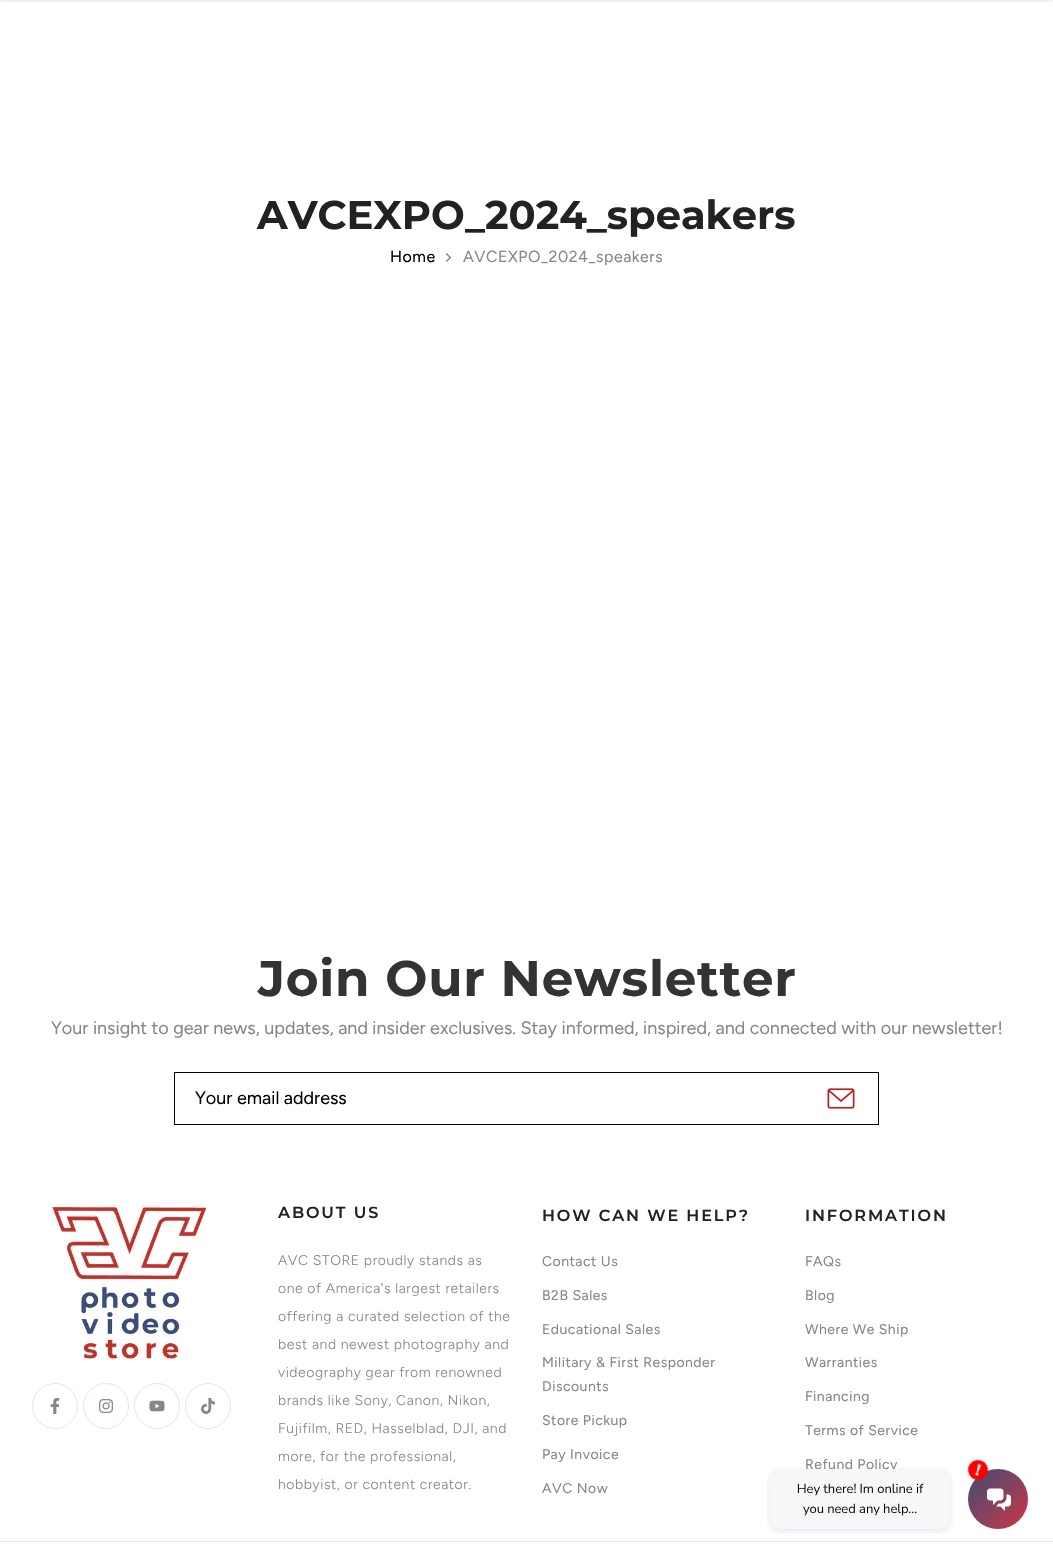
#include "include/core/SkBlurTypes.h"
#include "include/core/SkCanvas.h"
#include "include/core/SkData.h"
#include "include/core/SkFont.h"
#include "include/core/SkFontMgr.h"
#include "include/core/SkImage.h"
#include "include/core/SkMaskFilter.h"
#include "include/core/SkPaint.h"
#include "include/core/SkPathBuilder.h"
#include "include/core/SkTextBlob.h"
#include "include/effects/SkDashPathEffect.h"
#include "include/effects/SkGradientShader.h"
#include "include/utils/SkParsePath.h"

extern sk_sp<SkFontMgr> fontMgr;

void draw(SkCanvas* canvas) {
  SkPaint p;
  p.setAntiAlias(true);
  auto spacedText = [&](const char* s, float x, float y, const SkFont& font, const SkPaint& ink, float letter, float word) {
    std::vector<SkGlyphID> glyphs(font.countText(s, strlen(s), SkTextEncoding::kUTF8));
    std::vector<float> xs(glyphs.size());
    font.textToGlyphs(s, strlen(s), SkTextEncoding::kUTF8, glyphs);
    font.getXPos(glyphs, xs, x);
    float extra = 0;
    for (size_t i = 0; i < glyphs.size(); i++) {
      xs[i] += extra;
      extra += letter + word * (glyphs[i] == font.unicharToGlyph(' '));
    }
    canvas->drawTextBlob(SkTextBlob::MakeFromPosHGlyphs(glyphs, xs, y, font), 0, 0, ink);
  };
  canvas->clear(SK_ColorWHITE);
  p.setColor(SkColorSetARGB(26, 0, 0, 0));
  p.setMaskFilter(SkMaskFilter::MakeBlur(kNormal_SkBlurStyle, 1.5f));
  canvas->drawRect(SkRect::MakeLTRB(0, -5, 1053, 1), p);
  p.setMaskFilter(nullptr);
  canvas->drawImageRect(SkImages::DeferredFromEncodedData(SkData::MakeFromFileName("images/1.png")), SkRect::MakeLTRB(445, 253, 452, 262), SkSamplingOptions());
  p.setStyle(SkPaint::kStroke_Style);
  p.setStrokeWidth(1);
  p.setColor(SK_ColorBLACK);
  canvas->drawRect(SkRect::MakeLTRB(174.5f, 1072.5f, 878.5f, 1124.5f), p);
  canvas->drawImageRect(SkImages::DeferredFromEncodedData(SkData::MakeFromFileName("images/2.png")), SkRect::MakeLTRB(827, 1088, 855, 1109), SkSamplingOptions());
  canvas->drawImageRect(SkImages::DeferredFromEncodedData(SkData::MakeFromFileName("images/3.png")), SkRect::MakeLTRB(52, 1205, 207, 1361), SkSamplingOptions());
  p.setColor(SkColorSetRGB(230, 230, 230));
  canvas->drawCircle(55, 1406, 22.5f, p);
  canvas->drawImageRect(SkImages::DeferredFromEncodedData(SkData::MakeFromFileName("images/4.png")), SkRect::MakeLTRB(50, 1398, 60, 1414), SkSamplingOptions());
  canvas->drawCircle(106, 1406, 22.5f, p);
  canvas->drawImageRect(SkImages::DeferredFromEncodedData(SkData::MakeFromFileName("images/5.png")), SkRect::MakeLTRB(99, 1399, 113, 1413), SkSamplingOptions());
  canvas->drawCircle(157, 1406, 22.5f, p);
  canvas->drawImageRect(SkImages::DeferredFromEncodedData(SkData::MakeFromFileName("images/6.png")), SkRect::MakeLTRB(149, 1400, 165, 1412), SkSamplingOptions());
  canvas->drawCircle(208, 1406, 22.5f, p);
  canvas->drawImageRect(SkImages::DeferredFromEncodedData(SkData::MakeFromFileName("images/7.png")), SkRect::MakeLTRB(201, 1398, 215, 1414), SkSamplingOptions());
  p.setStyle(SkPaint::kFill_Style);
  canvas->drawRect(SkRect::MakeLTRB(0, 1541, 1053, 1542), p);
  SkFont font1(fontMgr->matchFamilyStyle("Montserrat", SkFontStyle::Bold()), 40);
  font1.setSubpixel(true);
  p.setColor(SkColorSetRGB(34, 34, 34));
  canvas->drawString("AVCEXPO_2024_speakers", 257, 229, font1, p);
  SkFont font2(fontMgr->matchFamilyStyle("Figtree", SkFontStyle::Normal()), 16);
  font2.setSubpixel(true);
  p.setColor(SK_ColorBLACK);
  spacedText("Home", 390, 262, font2, p, 0.5f, 0);
  p.setColor(SkColorSetRGB(134, 134, 134));
  spacedText("AVCEXPO_2024_speakers", 463, 262, font2, p, 0.5f, 0);
  SkFont font3(fontMgr->matchFamilyStyle("Montserrat", SkFontStyle::Bold()), 50);
  font3.setSubpixel(true);
  p.setColor(SkColorSetRGB(51, 51, 51));
  spacedText("Join Our Newsletter", 258, 996, font3, p, 0.75f, 0);
  SkFont font4(fontMgr->matchFamilyStyle("Figtree", SkFontStyle::Normal()), 18);
  font4.setSubpixel(true);
  p.setColor(SkColorSetRGB(134, 134, 134));
  canvas->drawString("Your insight to gear news, updates, and insider exclusives. Stay informed, inspired, and connected with our newsletter!", 51, 1034, font4, p);
  p.setColor(SK_ColorBLACK);
  canvas->drawString("Your email address", 195, 1104, font4, p);
  SkFont font5(fontMgr->matchFamilyStyle("Montserrat", SkFontStyle(600, SkFontStyle::kNormal_Width, SkFontStyle::kUpright_Slant)), 16);
  font5.setSubpixel(true);
  p.setColor(SkColorSetRGB(34, 34, 34));
  spacedText("ABOUT US", 278, 1218, font5, p, 1.9f, 0);
  SkFont font6(fontMgr->matchFamilyStyle("Figtree", SkFontStyle(300, SkFontStyle::kNormal_Width, SkFontStyle::kUpright_Slant)), 14);
  font6.setSubpixel(true);
  p.setColor(SkColorSetRGB(134, 134, 134));
  spacedText("AVC STORE proudly stands as", 278, 1265, font6, p, 0.6f, 0);
  spacedText("one of America's largest retailers", 278, 1293, font6, p, 0.6f, 0);
  spacedText("offering a curated selection of the", 278, 1321, font6, p, 0.6f, 0);
  spacedText("best and newest photography and", 278, 1349, font6, p, 0.6f, 0);
  spacedText("videography gear from renowned", 278, 1377, font6, p, 0.6f, 0);
  spacedText("brands like Sony, Canon, Nikon,", 278, 1405, font6, p, 0.6f, 0);
  spacedText("Fujifilm, RED, Hasselblad, DJI, and", 278, 1433, font6, p, 0.6f, 0);
  spacedText("more, for the professional,", 278, 1461, font6, p, 0.6f, 0);
  spacedText("hobbyist, or content creator.", 278, 1489, font6, p, 0.6f, 0);
  p.setColor(SkColorSetRGB(34, 34, 34));
  spacedText("HOW CAN WE HELP?", 542, 1221, font5, p, 1.9f, 0);
  SkFont font7(fontMgr->matchFamilyStyle("Figtree", SkFontStyle::Normal()), 14);
  font7.setSubpixel(true);
  p.setColor(SkColorSetRGB(134, 134, 134));
  spacedText("Contact Us", 542, 1266, font7, p, 0.5f, 0);
  spacedText("B2B Sales", 542, 1300, font7, p, 0.5f, 0);
  spacedText("Educational Sales", 542, 1334, font7, p, 0.5f, 0);
  spacedText("Military & First Responder", 542, 1367, font7, p, 0.5f, 0);
  spacedText("Discounts", 542, 1391, font7, p, 0.5f, 0);
  spacedText("Store Pickup", 542, 1425, font7, p, 0.5f, 0);
  spacedText("Pay Invoice", 542, 1459, font7, p, 0.5f, 0);
  spacedText("AVC Now", 542, 1493, font7, p, 0.5f, 0);
  p.setColor(SkColorSetRGB(34, 34, 34));
  spacedText("INFORMATION", 805, 1221, font5, p, 1.9f, 0);
  p.setColor(SkColorSetRGB(134, 134, 134));
  spacedText("FAQs", 805, 1266, font7, p, 0.5f, 0);
  spacedText("Blog", 805, 1300, font7, p, 0.5f, 0);
  spacedText("Where We Ship", 805, 1334, font7, p, 0.5f, 0);
  spacedText("Warranties", 805, 1367, font7, p, 0.5f, 0);
  spacedText("Financing", 805, 1401, font7, p, 0.5f, 0);
  spacedText("Terms of Service", 805, 1435, font7, p, 0.5f, 0);
  spacedText("Refund Policy", 805, 1469, font7, p, 0.5f, 0);
  canvas->drawImageRect(SkImages::DeferredFromEncodedData(SkData::MakeFromFileName("images/8.png")), SkRect::MakeLTRB(767, 1459, 1028, 1534), SkSamplingOptions());
}
